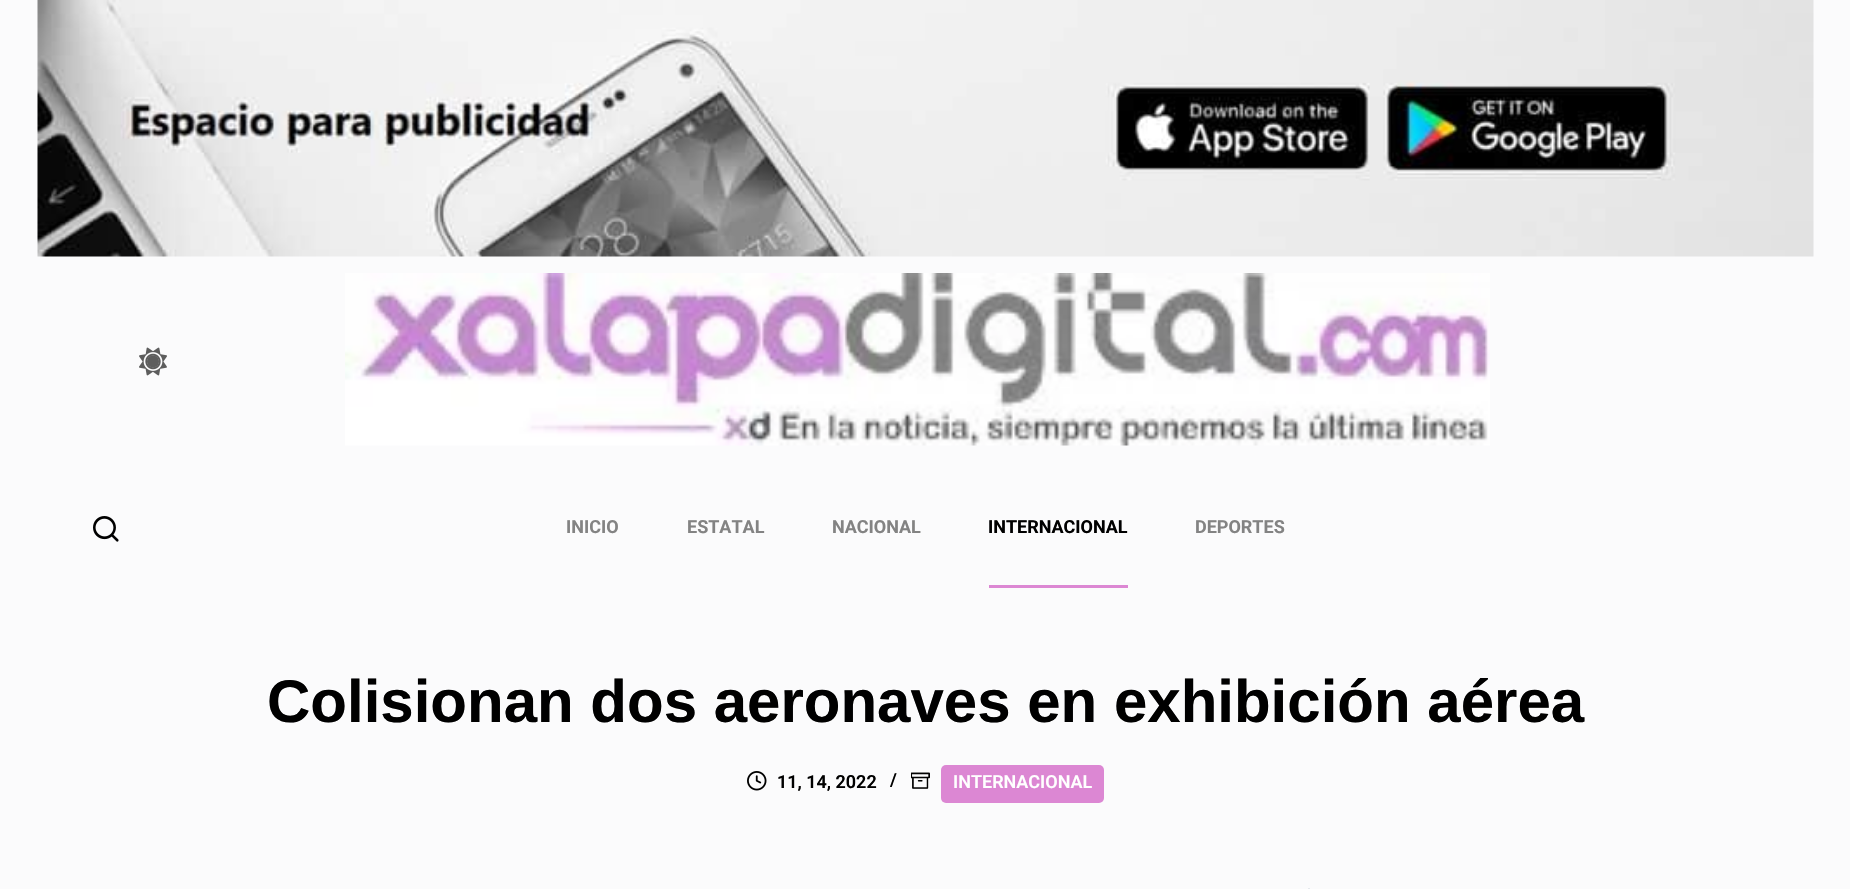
#include "include/core/SkBlurTypes.h"
#include "include/core/SkCanvas.h"
#include "include/core/SkData.h"
#include "include/core/SkFont.h"
#include "include/core/SkFontMgr.h"
#include "include/core/SkImage.h"
#include "include/core/SkMaskFilter.h"
#include "include/core/SkPaint.h"
#include "include/core/SkPathBuilder.h"
#include "include/core/SkTextBlob.h"
#include "include/effects/SkDashPathEffect.h"
#include "include/effects/SkGradientShader.h"
#include "include/utils/SkParsePath.h"

extern sk_sp<SkFontMgr> fontMgr;

void draw(SkCanvas* canvas) {
  SkPaint p;
  p.setAntiAlias(true);
  canvas->clear(SkColorSetRGB(251, 251, 252));
  canvas->drawImageRect(SkImages::DeferredFromEncodedData(SkData::MakeFromFileName("images/1.png")), SkRect::MakeLTRB(37, 0, 1814, 257), SkSamplingOptions());
  canvas->drawImageRect(SkImages::DeferredFromEncodedData(SkData::MakeFromFileName("images/2.png")), SkRect::MakeLTRB(139, 347, 167, 376), SkSamplingOptions());
  canvas->drawImageRect(SkImages::DeferredFromEncodedData(SkData::MakeFromFileName("images/3.png")), SkRect::MakeLTRB(345, 273, 1490, 446), SkSamplingOptions());
  canvas->drawImageRect(SkImages::DeferredFromEncodedData(SkData::MakeFromFileName("images/4.png")), SkRect::MakeLTRB(93, 516, 119, 542), SkSamplingOptions());
  p.setColor(SkColorSetRGB(220, 135, 211));
  canvas->drawRect(SkRect::MakeLTRB(989, 585, 1128, 588), p);
  canvas->drawImageRect(SkImages::DeferredFromEncodedData(SkData::MakeFromFileName("images/5.png")), SkRect::MakeLTRB(747, 771, 767, 791), SkSamplingOptions());
  canvas->drawImageRect(SkImages::DeferredFromEncodedData(SkData::MakeFromFileName("images/6.png")), SkRect::MakeLTRB(911, 772, 930, 789), SkSamplingOptions());
  canvas->drawRoundRect(SkRect::MakeLTRB(941, 765, 1104, 803), 5, 5, p);
  p.setColor(SkColorSetRGB(229, 233, 238));
  canvas->drawRect(SkRect::MakeLTRB(1308, 888, 1310, 889), p);
  SkFont font1(fontMgr->matchFamilyStyle("Roboto", SkFontStyle::Bold()), 18);
  font1.setSubpixel(true);
  p.setColor(SkColorSetRGB(131, 131, 131));
  canvas->drawString("INICIO", 566, 533, font1, p);
  canvas->drawString("ESTATAL", 687, 533, font1, p);
  canvas->drawString("NACIONAL", 832, 533, font1, p);
  p.setColor(SK_ColorBLACK);
  canvas->drawString("INTERNACIONAL", 988, 533, font1, p);
  p.setColor(SkColorSetRGB(131, 131, 131));
  canvas->drawString("DEPORTES", 1195, 533, font1, p);
  SkFont font2(fontMgr->matchFamilyStyle("Liberation Sans", SkFontStyle::Bold()), 60);
  font2.setSubpixel(true);
  p.setColor(SK_ColorBLACK);
  canvas->drawString("Colisionan dos aeronaves en exhibición aérea", 267, 722, font2, p);
  SkFont font3(fontMgr->matchFamilyStyle("Roboto", SkFontStyle(600, SkFontStyle::kNormal_Width, SkFontStyle::kUpright_Slant)), 18);
  font3.setSubpixel(true);
  canvas->drawString("11, 14, 2022", 777, 788, font3, p);
  canvas->drawString("/", 890, 786, font3, p);
  p.setColor(SK_ColorWHITE);
  canvas->drawString("INTERNACIONAL", 953, 788, font3, p);
}
